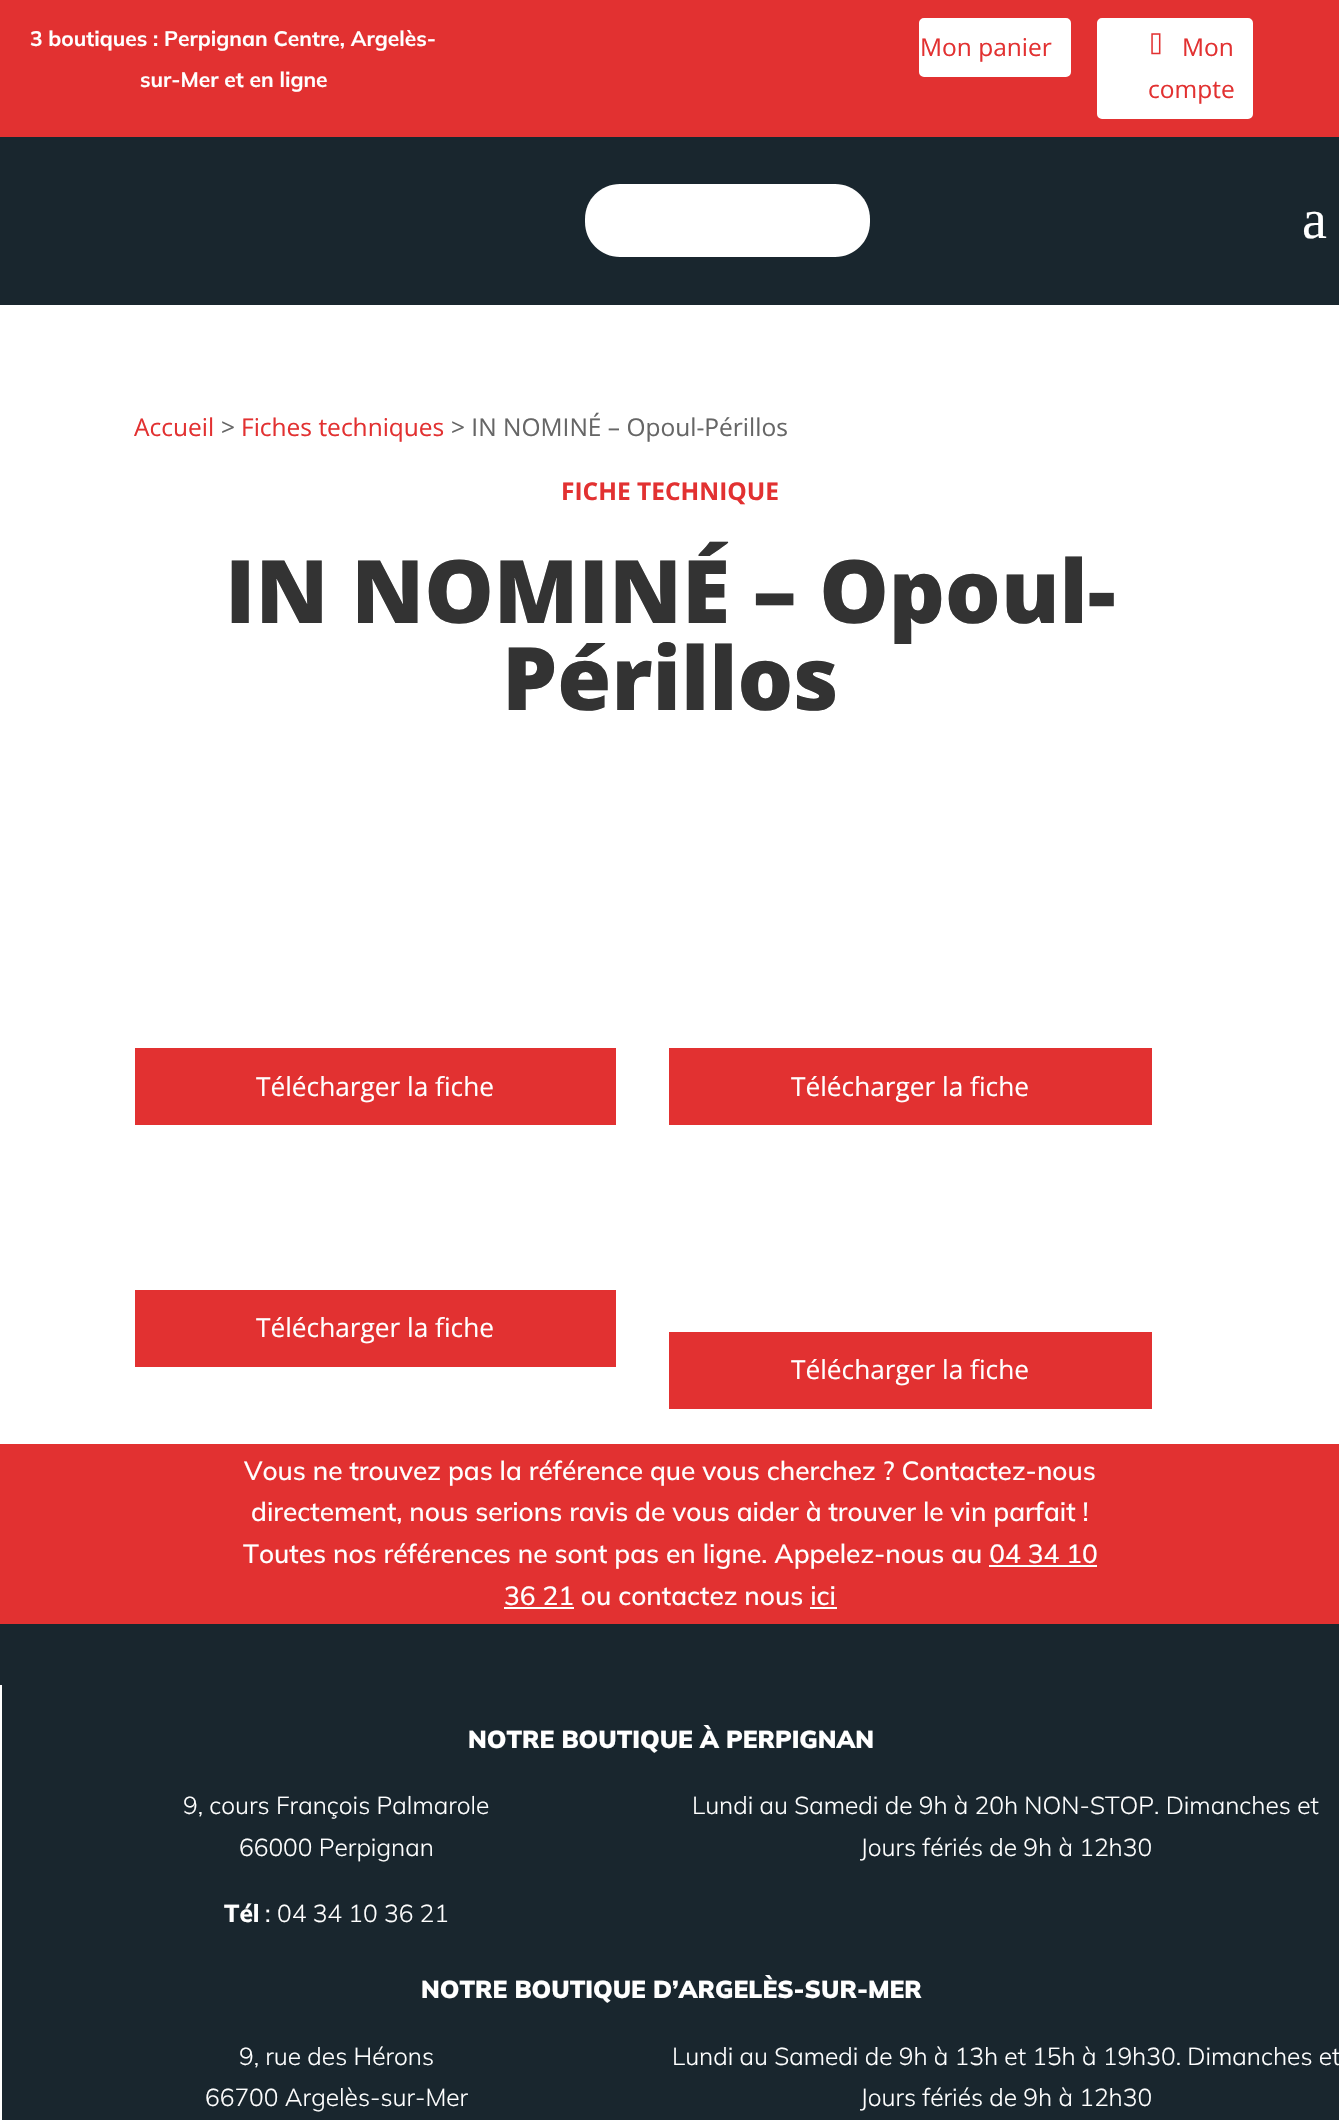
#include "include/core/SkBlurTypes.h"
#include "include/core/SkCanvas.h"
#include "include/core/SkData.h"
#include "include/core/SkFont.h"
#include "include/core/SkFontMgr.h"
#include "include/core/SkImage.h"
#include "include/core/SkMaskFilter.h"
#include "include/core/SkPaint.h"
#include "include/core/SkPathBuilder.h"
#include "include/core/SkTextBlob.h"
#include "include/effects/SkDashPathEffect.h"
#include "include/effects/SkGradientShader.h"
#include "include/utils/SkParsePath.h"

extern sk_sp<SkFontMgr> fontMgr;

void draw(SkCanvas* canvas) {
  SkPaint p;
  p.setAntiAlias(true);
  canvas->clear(SK_ColorWHITE);
  p.setColor(SkColorSetRGB(226, 49, 49));
  canvas->drawRect(SkRect::MakeLTRB(0, 0, 1339, 137), p);
  p.setColor(SK_ColorWHITE);
  canvas->drawRoundRect(SkRect::MakeLTRB(920, 19, 1070, 76), 4, 4, p);
  p.setStyle(SkPaint::kStroke_Style);
  p.setStrokeWidth(2);
  canvas->drawRoundRect(SkRect::MakeLTRB(920, 19, 1070, 76), 4, 4, p);
  p.setStyle(SkPaint::kFill_Style);
  canvas->drawRoundRect(SkRect::MakeLTRB(1098, 19, 1252, 118), 4, 4, p);
  p.setStyle(SkPaint::kStroke_Style);
  canvas->drawRoundRect(SkRect::MakeLTRB(1098, 19, 1252, 118), 4, 4, p);
  canvas->drawImageRect(SkImages::DeferredFromEncodedData(SkData::MakeFromFileName("images/1.png")), SkRect::MakeLTRB(1151, 33, 1161, 55), SkSamplingOptions());
  p.setStyle(SkPaint::kFill_Style);
  p.setColor(SkColorSetRGB(25, 38, 46));
  canvas->drawRect(SkRect::MakeLTRB(0, 137, 1339, 305), p);
  p.setColor(SK_ColorWHITE);
  canvas->drawPath(SkPathBuilder().moveTo(620, 184).lineTo(795, 184).lineTo(795, 257).lineTo(620, 257).cubicTo(600.5f, 257, 585, 241.5f, 585, 222).lineTo(585, 219).cubicTo(585, 199.5f, 600.5f, 184, 620, 184).close().detach(), p);
  canvas->drawPath(SkPathBuilder().moveTo(795, 184).lineTo(835, 184).cubicTo(854.5f, 184, 870, 199.5f, 870, 219).lineTo(870, 222).cubicTo(870, 241.5f, 854.5f, 257, 835, 257).lineTo(795, 257).close().detach(), p);
  p.setColor(SkColorSetRGB(226, 49, 49));
  canvas->drawRect(SkRect::MakeLTRB(135, 1048, 616, 1125), p);
  canvas->drawRect(SkRect::MakeLTRB(669, 1048, 1152, 1125), p);
  canvas->drawRect(SkRect::MakeLTRB(135, 1290, 616, 1367), p);
  canvas->drawRect(SkRect::MakeLTRB(669, 1332, 1152, 1409), p);
  canvas->drawRect(SkRect::MakeLTRB(0, 1444, 1339, 1624), p);
  p.setColor(SK_ColorWHITE);
  canvas->drawRect(SkRect::MakeLTRB(989, 1565, 1097, 1567), p);
  canvas->drawRect(SkRect::MakeLTRB(504, 1607, 574, 1609), p);
  canvas->drawRect(SkRect::MakeLTRB(810, 1607, 837, 1609), p);
  p.setColor(SkColorSetRGB(25, 38, 46));
  canvas->drawRect(SkRect::MakeLTRB(0, 1624, 1339, 2120), p);
  p.setColor(SK_ColorWHITE);
  canvas->drawRect(SkRect::MakeLTRB(0, 1685, 2, 2120), p);
  SkFont font1(fontMgr->matchFamilyStyle("Mulish", SkFontStyle::Bold()), 21);
  font1.setSubpixel(true);
  canvas->drawString("3 boutiques : Perpignan Centre, Argelès-", 30, 46, font1, p);
  canvas->drawString("sur-Mer et en ligne", 140, 87, font1, p);
  SkFont font2(fontMgr->matchFamilyStyle("Open Sans", SkFontStyle::Normal()), 24.5f);
  font2.setSubpixel(true);
  p.setColor(SkColorSetRGB(226, 49, 49));
  canvas->drawString("Mon panier", 920, 56, font2, p);
  canvas->drawString("Mon", 1182, 56, font2, p);
  canvas->drawString("compte", 1148, 98, font2, p);
  SkFont font3(fontMgr->matchFamilyStyle("Liberation Serif", SkFontStyle::Normal()), 56);
  font3.setSubpixel(true);
  p.setColor(SK_ColorWHITE);
  canvas->drawString("a", 1302, 238, font3, p);
  p.setColor(SkColorSetRGB(226, 49, 49));
  canvas->drawString("Accueil", 134, 436, font2, p);
  p.setColor(SkColorSetRGB(102, 102, 102));
  canvas->drawString(">", 221, 436, font2, p);
  p.setColor(SkColorSetRGB(226, 49, 49));
  canvas->drawString("Fiches techniques", 241, 436, font2, p);
  p.setColor(SkColorSetRGB(102, 102, 102));
  canvas->drawString("> IN NOMINÉ – Opoul-Périllos", 451, 436, font2, p);
  SkFont font4(fontMgr->matchFamilyStyle("Open Sans", SkFontStyle::Bold()), 24.5f);
  font4.setSubpixel(true);
  p.setColor(SkColorSetRGB(226, 49, 49));
  canvas->drawString("FICHE TECHNIQUE", 561, 500, font4, p);
  SkFont font5(fontMgr->matchFamilyStyle("Open Sans", SkFontStyle(800, SkFontStyle::kNormal_Width, SkFontStyle::kUpright_Slant)), 87.5f);
  font5.setSubpixel(true);
  p.setColor(SkColorSetRGB(51, 51, 51));
  canvas->drawString("IN NOMINÉ – Opoul-", 225, 623, font5, p);
  canvas->drawString("Périllos", 502, 710, font5, p);
  SkFont font6(fontMgr->matchFamilyStyle("Open Sans", SkFontStyle::Normal()), 26.25f);
  font6.setSubpixel(true);
  p.setColor(SK_ColorWHITE);
  canvas->drawString("Télécharger la fiche", 256, 1096, font6, p);
  canvas->drawString("Télécharger la fiche", 791, 1096, font6, p);
  canvas->drawString("Télécharger la fiche", 256, 1337, font6, p);
  canvas->drawString("Télécharger la fiche", 791, 1379, font6, p);
  SkFont font7(fontMgr->matchFamilyStyle("Mulish", SkFontStyle(500, SkFontStyle::kNormal_Width, SkFontStyle::kUpright_Slant)), 26.25f);
  font7.setSubpixel(true);
  canvas->drawString("Vous ne trouvez pas la référence que vous cherchez ? Contactez-nous", 244, 1480, font7, p);
  canvas->drawString("directement, nous serions ravis de vous aider à trouver le vin parfait !", 251, 1521, font7, p);
  canvas->drawString("Toutes nos références ne sont pas en ligne. Appelez-nous au 04 34 10", 243, 1563, font7, p);
  canvas->drawString("36 21 ou contactez nous ici", 504, 1605, font7, p);
  SkFont font8(fontMgr->matchFamilyStyle("Mulish", SkFontStyle(900, SkFontStyle::kNormal_Width, SkFontStyle::kUpright_Slant)), 24.5f);
  font8.setSubpixel(true);
  canvas->drawString("NOTRE BOUTIQUE À PERPIGNAN", 468, 1748, font8, p);
  SkFont font9(fontMgr->matchFamilyStyle("Mulish", SkFontStyle(300, SkFontStyle::kNormal_Width, SkFontStyle::kUpright_Slant)), 24.5f);
  font9.setSubpixel(true);
  canvas->drawString("9, cours François Palmarole", 183, 1814, font9, p);
  canvas->drawString("66000 Perpignan", 239, 1856, font9, p);
  SkFont font10(fontMgr->matchFamilyStyle("Mulish", SkFontStyle(800, SkFontStyle::kNormal_Width, SkFontStyle::kUpright_Slant)), 24.5f);
  font10.setSubpixel(true);
  canvas->drawString("Tél", 224, 1922, font10, p);
  SkFont font11(fontMgr->matchFamilyStyle("Mulish", SkFontStyle::Normal()), 24.5f);
  font11.setSubpixel(true);
  canvas->drawString(":", 265, 1922, font11, p);
  canvas->drawString("04 34 10 36 21", 277, 1922, font9, p);
  canvas->drawString("Lundi au Samedi de 9h à 20h NON-STOP. Dimanches et", 692, 1814, font9, p);
  canvas->drawString("Jours fériés de 9h à 12h30", 860, 1856, font9, p);
  canvas->drawString("NOTRE BOUTIQUE D’ARGELÈS-SUR-MER", 421, 1998, font8, p);
  canvas->drawString("9, rue des Hérons", 239, 2065, font9, p);
  canvas->drawString("66700 Argelès-sur-Mer", 205, 2106, font9, p);
  canvas->drawString("Lundi au Samedi de 9h à 13h et 15h à 19h30. Dimanches et", 672, 2065, font9, p);
  canvas->drawString("Jours fériés de 9h à 12h30", 860, 2106, font9, p);
}
